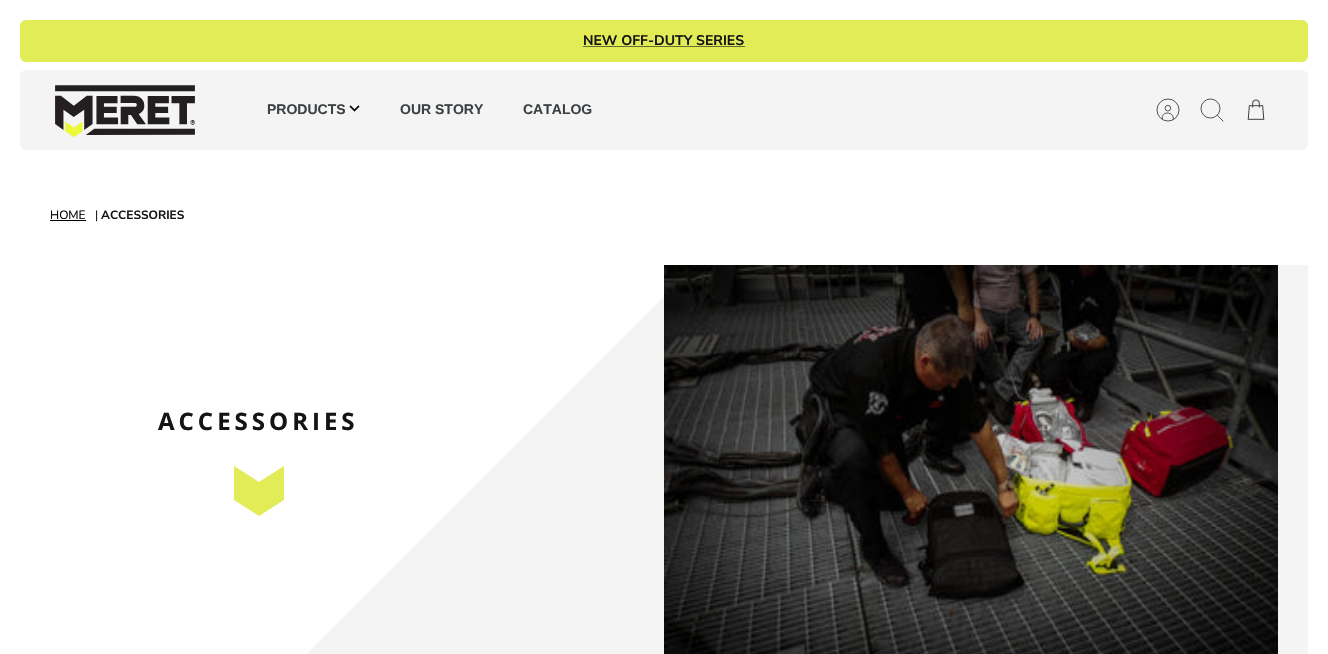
#include "include/core/SkBlurTypes.h"
#include "include/core/SkCanvas.h"
#include "include/core/SkData.h"
#include "include/core/SkFont.h"
#include "include/core/SkFontMgr.h"
#include "include/core/SkImage.h"
#include "include/core/SkMaskFilter.h"
#include "include/core/SkPaint.h"
#include "include/core/SkPathBuilder.h"
#include "include/core/SkTextBlob.h"
#include "include/effects/SkDashPathEffect.h"
#include "include/effects/SkGradientShader.h"
#include "include/utils/SkParsePath.h"

extern sk_sp<SkFontMgr> fontMgr;

void draw(SkCanvas* canvas) {
  SkPaint p;
  p.setAntiAlias(true);
  auto spacedText = [&](const char* s, float x, float y, const SkFont& font, const SkPaint& ink, float letter, float word) {
    std::vector<SkGlyphID> glyphs(font.countText(s, strlen(s), SkTextEncoding::kUTF8));
    std::vector<float> xs(glyphs.size());
    font.textToGlyphs(s, strlen(s), SkTextEncoding::kUTF8, glyphs);
    font.getXPos(glyphs, xs, x);
    float extra = 0;
    for (size_t i = 0; i < glyphs.size(); i++) {
      xs[i] += extra;
      extra += letter + word * (glyphs[i] == font.unicharToGlyph(' '));
    }
    canvas->drawTextBlob(SkTextBlob::MakeFromPosHGlyphs(glyphs, xs, y, font), 0, 0, ink);
  };
  canvas->clear(SK_ColorWHITE);
  p.setColor(SkColorSetRGB(226, 236, 87));
  canvas->drawRoundRect(SkRect::MakeLTRB(20, 20, 1308, 62), 6, 6, p);
  p.setColor(SkColorSetRGB(102, 106, 47));
  canvas->drawRect(SkRect::MakeLTRB(583, 46, 745, 47), p);
  p.setColor(SkColorSetRGB(244, 244, 244));
  canvas->drawRoundRect(SkRect::MakeLTRB(20, 70, 1308, 150), 6, 6, p);
  canvas->drawImageRect(SkImages::DeferredFromEncodedData(SkData::MakeFromFileName("images/1.png")), SkRect::MakeLTRB(55, 85, 195, 138), SkSamplingOptions());
  canvas->drawImageRect(SkImages::DeferredFromEncodedData(SkData::MakeFromFileName("images/2.png")), SkRect::MakeLTRB(349, 105, 360, 112), SkSamplingOptions());
  p.setStyle(SkPaint::kStroke_Style);
  p.setStrokeWidth(0.9f);
  p.setColor(SkColorSetRGB(60, 64, 67));
  canvas->drawPath(SkPathBuilder().moveTo(1173, 120).cubicTo(1175.5f, 111, 1160, 110.5f, 1162.5f, 119.5f).detach(), p);
  canvas->drawCircle(1167.9f, 108.2f, 2.8f, p);
  canvas->drawCircle(1168, 110, 11, p);
  canvas->drawCircle(1210.5f, 108.5f, 9.5f, p);
  p.setStrokeCap(SkPaint::kSquare_Cap);
  canvas->drawPath(SkPathBuilder().moveTo(1217.5f, 115.5f).lineTo(1223, 121).detach(), p);
  canvas->drawImageRect(SkImages::DeferredFromEncodedData(SkData::MakeFromFileName("images/3.png")), SkRect::MakeLTRB(1247, 99, 1265, 120), SkSamplingOptions());
  p.setStyle(SkPaint::kFill_Style);
  p.setColor(SK_ColorBLACK);
  canvas->drawRect(SkRect::MakeLTRB(50, 220, 86, 221), p);
  {
    const SkColor colors[] = {SkColorSetRGB(244, 244, 244), SK_ColorWHITE};
    const float stops[] = {0.6f, 0.6f};
    const SkPoint ends[] = {{1086, 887}, {242, 43}};
    p.setShader(SkGradientShader::MakeLinear(ends, colors, stops, 2, SkTileMode::kClamp));
    p.setAlpha(255);
  }
  canvas->drawRect(SkRect::MakeLTRB(307, 265, 1308, 654), p);
  p.setShader(nullptr);
  p.setColor(SkColorSetRGB(226, 236, 87));
  canvas->drawPath(SkPathBuilder().moveTo(242, 471).lineTo(234, 466).lineTo(234, 500).lineTo(259, 516).lineTo(284, 500).lineTo(284, 466).lineTo(259, 482).close().detach(), p);
  canvas->drawImageRect(SkImages::DeferredFromEncodedData(SkData::MakeFromFileName("images/4.png")), SkRect::MakeLTRB(664, 265, 1278, 654), SkSamplingOptions());
  SkFont font1(fontMgr->matchFamilyStyle("Nunito Sans", SkFontStyle::Bold()), 14);
  font1.setSubpixel(true);
  p.setColor(SkColorSetRGB(20, 20, 20));
  canvas->drawString("NEW OFF-DUTY SERIES", 583, 45, font1, p);
  SkFont font2(fontMgr->matchFamilyStyle("Liberation Sans", SkFontStyle::Bold()), 14);
  font2.setSubpixel(true);
  p.setColor(SkColorSetRGB(60, 64, 67));
  canvas->drawString("PRODUCTS", 267, 114, font2, p);
  canvas->drawString("OUR STORY", 400, 114, font2, p);
  canvas->drawString("CATALOG", 523, 114, font2, p);
  SkFont font3(fontMgr->matchFamilyStyle("Nunito Sans", SkFontStyle::Normal()), 12);
  font3.setSubpixel(true);
  p.setColor(SK_ColorBLACK);
  canvas->drawString("HOME", 50, 219, font3, p);
  p.setColor(SkColorSetRGB(20, 20, 20));
  canvas->drawString("|", 95, 219, font3, p);
  SkFont font4(fontMgr->matchFamilyStyle("Nunito Sans", SkFontStyle::Bold()), 12);
  font4.setSubpixel(true);
  canvas->drawString("ACCESSORIES", 101, 219, font4, p);
  SkFont font5(fontMgr->matchFamilyStyle("Open Sans", SkFontStyle::Bold()), 24);
  font5.setSubpixel(true);
  spacedText("ACCESSORIES", 158, 430, font5, p, 4, 0);
}
